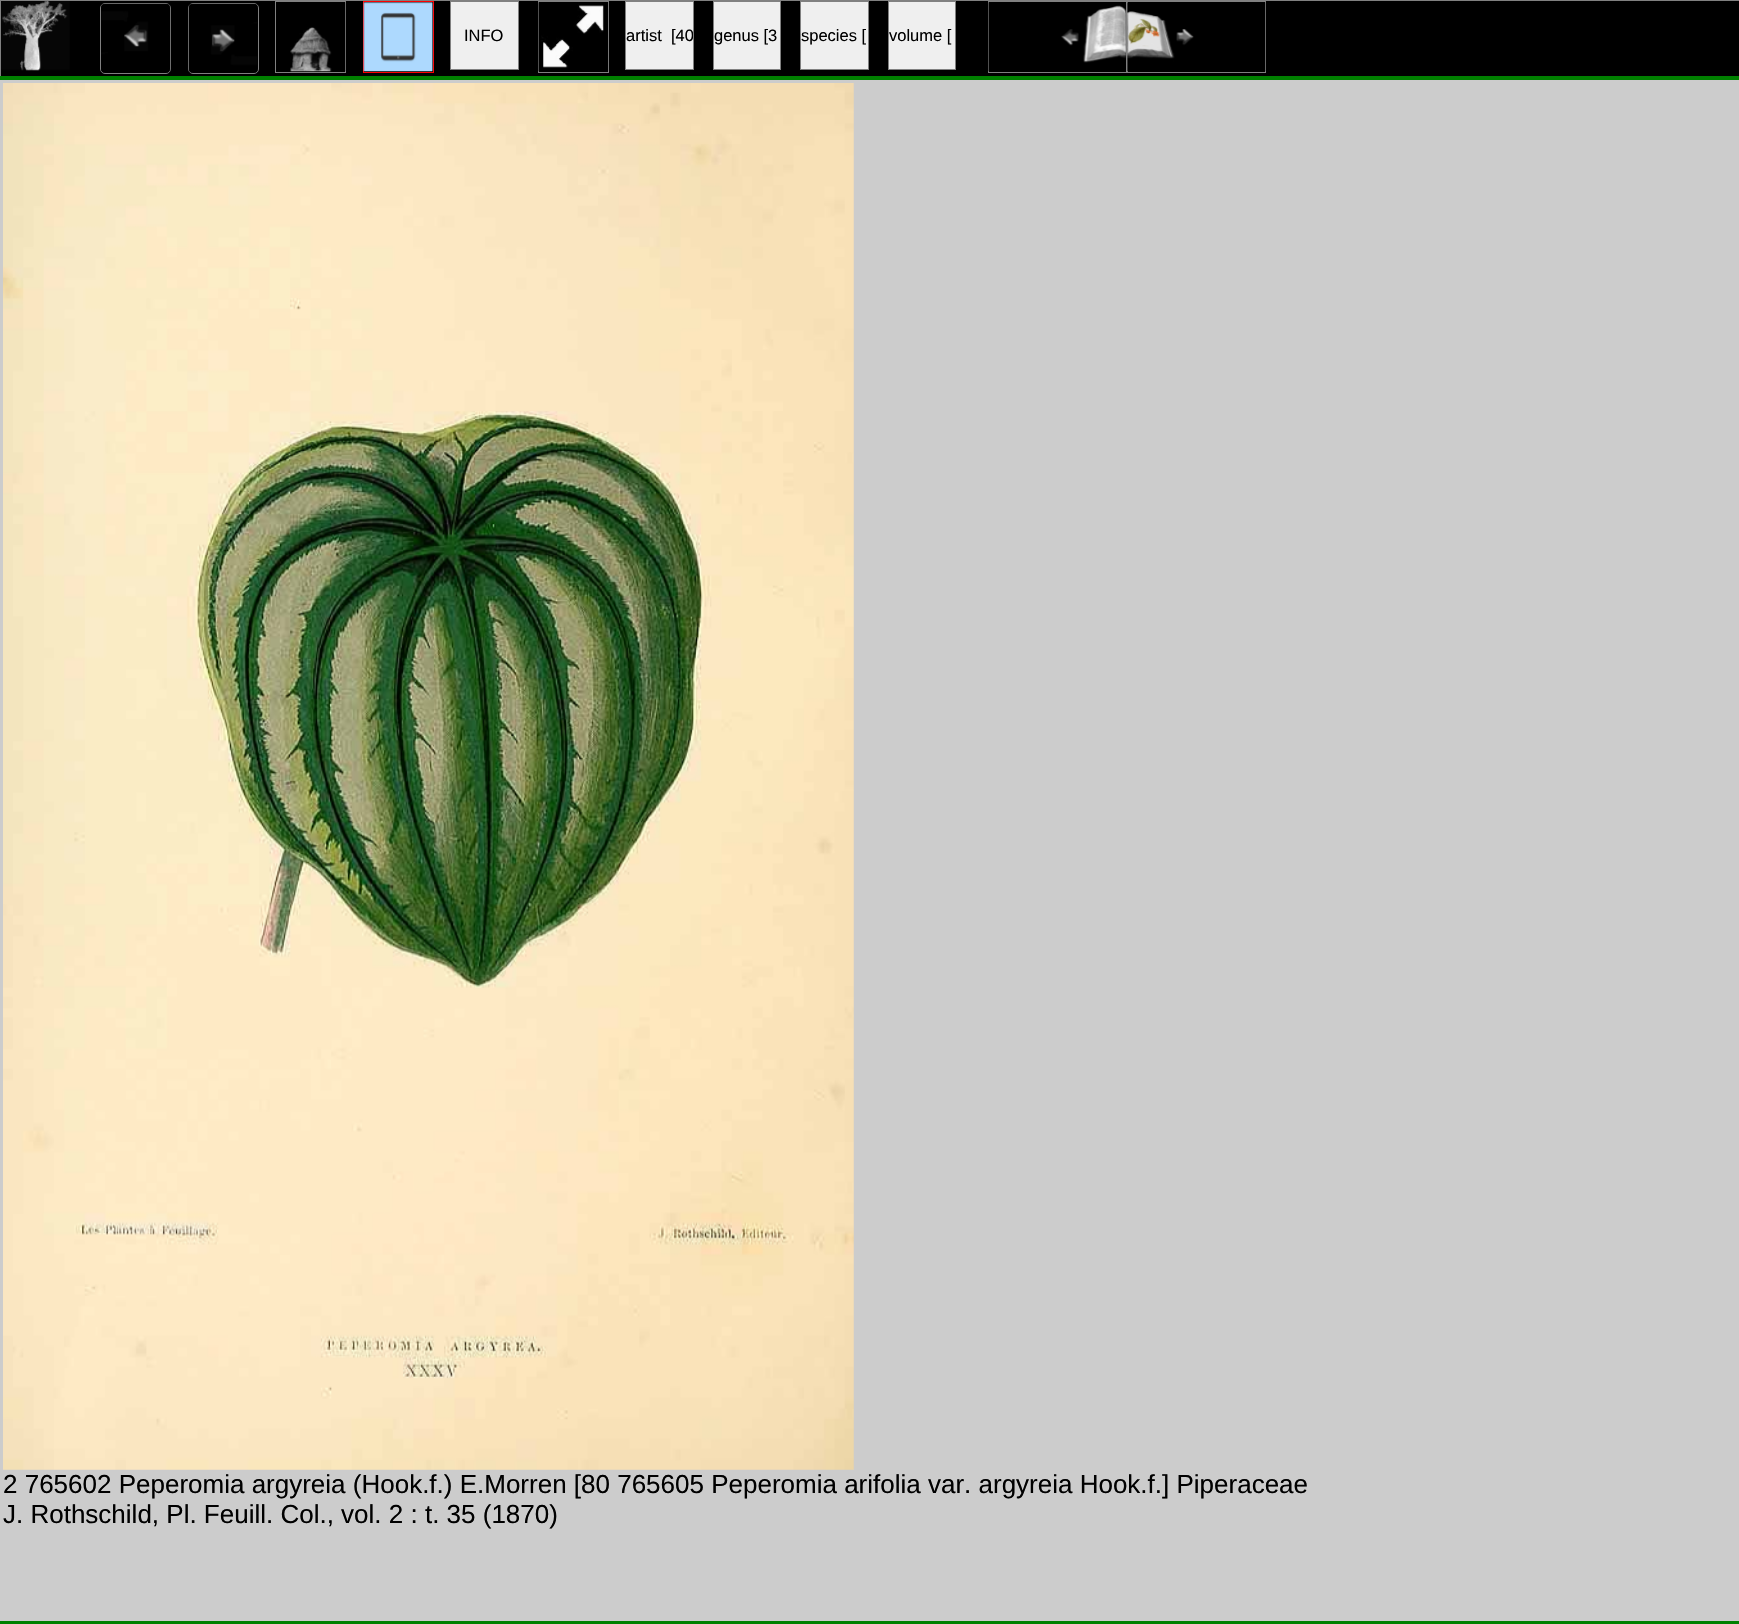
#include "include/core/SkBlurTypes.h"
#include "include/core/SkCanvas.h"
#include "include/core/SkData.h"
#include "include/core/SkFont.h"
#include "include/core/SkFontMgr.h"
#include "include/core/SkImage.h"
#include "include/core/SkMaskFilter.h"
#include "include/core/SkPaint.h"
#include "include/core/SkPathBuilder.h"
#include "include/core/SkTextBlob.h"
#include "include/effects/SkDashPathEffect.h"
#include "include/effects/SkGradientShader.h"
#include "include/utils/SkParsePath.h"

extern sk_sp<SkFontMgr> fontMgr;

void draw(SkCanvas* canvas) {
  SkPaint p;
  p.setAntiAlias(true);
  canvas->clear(SkColorSetRGB(204, 204, 204));
  p.setColor(SK_ColorBLACK);
  canvas->drawRect(SkRect::MakeLTRB(1, 1, 1739, 76), p);
  p.setStyle(SkPaint::kStroke_Style);
  p.setStrokeWidth(1);
  p.setColor(SkColorSetRGB(128, 128, 128));
  canvas->drawRect(SkRect::MakeLTRB(0.5f, 0.5f, 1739.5f, 77.5f), p);
  canvas->drawImageRect(SkImages::DeferredFromEncodedData(SkData::MakeFromFileName("images/1.png")), SkRect::MakeLTRB(1, 1, 70, 71), SkSamplingOptions());
  canvas->drawRoundRect(SkRect::MakeLTRB(100.5f, 3.5f, 170.5f, 73.5f), 4.5f, 4.5f, p);
  canvas->drawImageRect(SkImages::DeferredFromEncodedData(SkData::MakeFromFileName("images/2.png")), SkRect::MakeLTRB(101, 3, 171, 73), SkSamplingOptions());
  canvas->drawRoundRect(SkRect::MakeLTRB(188.5f, 3.5f, 258.5f, 73.5f), 4.5f, 4.5f, p);
  canvas->drawImageRect(SkImages::DeferredFromEncodedData(SkData::MakeFromFileName("images/3.png")), SkRect::MakeLTRB(188, 3, 258, 73), SkSamplingOptions());
  canvas->drawRect(SkRect::MakeLTRB(275.5f, 1.5f, 345.5f, 72.5f), p);
  canvas->drawImageRect(SkImages::DeferredFromEncodedData(SkData::MakeFromFileName("images/4.png")), SkRect::MakeLTRB(290, 2, 346, 72), SkSamplingOptions());
  p.setColor(SkColorSetRGB(255, 0, 0));
  canvas->drawRect(SkRect::MakeLTRB(363.5f, 1.5f, 433.5f, 72.5f), p);
  canvas->drawImageRect(SkImages::DeferredFromEncodedData(SkData::MakeFromFileName("images/5.png")), SkRect::MakeLTRB(363, 2, 434, 72), SkSamplingOptions());
  p.setStyle(SkPaint::kFill_Style);
  p.setColor(SkColorSetRGB(239, 239, 239));
  canvas->drawRect(SkRect::MakeLTRB(450.5f, 1.5f, 518.5f, 69.5f), p);
  p.setStyle(SkPaint::kStroke_Style);
  p.setColor(SkColorSetRGB(128, 128, 128));
  canvas->drawRect(SkRect::MakeLTRB(450.5f, 1.5f, 518.5f, 69.5f), p);
  canvas->drawRect(SkRect::MakeLTRB(538.5f, 1.5f, 608.5f, 72.5f), p);
  canvas->drawImageRect(SkImages::DeferredFromEncodedData(SkData::MakeFromFileName("images/6.png")), SkRect::MakeLTRB(538, 2, 609, 72), SkSamplingOptions());
  p.setStyle(SkPaint::kFill_Style);
  p.setColor(SkColorSetRGB(239, 239, 239));
  canvas->drawRect(SkRect::MakeLTRB(625.5f, 1.5f, 693.5f, 69.5f), p);
  p.setStyle(SkPaint::kStroke_Style);
  p.setColor(SkColorSetRGB(128, 128, 128));
  canvas->drawRect(SkRect::MakeLTRB(625.5f, 1.5f, 693.5f, 69.5f), p);
  p.setStyle(SkPaint::kFill_Style);
  p.setColor(SkColorSetRGB(239, 239, 239));
  canvas->drawRect(SkRect::MakeLTRB(713.5f, 1.5f, 780.5f, 69.5f), p);
  p.setStyle(SkPaint::kStroke_Style);
  p.setColor(SkColorSetRGB(128, 128, 128));
  canvas->drawRect(SkRect::MakeLTRB(713.5f, 1.5f, 780.5f, 69.5f), p);
  p.setStyle(SkPaint::kFill_Style);
  p.setColor(SkColorSetRGB(239, 239, 239));
  canvas->drawRect(SkRect::MakeLTRB(800.5f, 1.5f, 868.5f, 69.5f), p);
  p.setStyle(SkPaint::kStroke_Style);
  p.setColor(SkColorSetRGB(128, 128, 128));
  canvas->drawRect(SkRect::MakeLTRB(800.5f, 1.5f, 868.5f, 69.5f), p);
  p.setStyle(SkPaint::kFill_Style);
  p.setColor(SkColorSetRGB(239, 239, 239));
  canvas->drawRect(SkRect::MakeLTRB(888.5f, 1.5f, 955.5f, 69.5f), p);
  p.setStyle(SkPaint::kStroke_Style);
  p.setColor(SkColorSetRGB(128, 128, 128));
  canvas->drawRect(SkRect::MakeLTRB(888.5f, 1.5f, 955.5f, 69.5f), p);
  canvas->drawRect(SkRect::MakeLTRB(988.5f, 1.5f, 1127.5f, 72.5f), p);
  canvas->drawImageRect(SkImages::DeferredFromEncodedData(SkData::MakeFromFileName("images/7.png")), SkRect::MakeLTRB(988, 2, 1126, 72), SkSamplingOptions());
  canvas->drawRect(SkRect::MakeLTRB(1126.5f, 1.5f, 1265.5f, 72.5f), p);
  canvas->drawImageRect(SkImages::DeferredFromEncodedData(SkData::MakeFromFileName("images/8.png")), SkRect::MakeLTRB(1127, 2, 1266, 72), SkSamplingOptions());
  p.setStyle(SkPaint::kFill_Style);
  p.setColor(SkColorSetRGB(0, 128, 0));
  canvas->drawRect(SkRect::MakeLTRB(0, 76, 1739, 80), p);
  canvas->drawRect(SkRect::MakeLTRB(0, 1621, 1739, 1624), p);
  canvas->drawImageRect(SkImages::DeferredFromEncodedData(SkData::MakeFromFileName("images/9.png")), SkRect::MakeLTRB(3, 83, 854, 1470), SkSamplingOptions());
  SkFont font1(fontMgr->matchFamilyStyle("Liberation Sans", SkFontStyle::Normal()), 16.5f);
  font1.setSubpixel(true);
  p.setColor(SK_ColorBLACK);
  canvas->drawString("INFO", 464, 41, font1, p);
  canvas->save();
  canvas->clipRect(SkRect::MakeLTRB(626, 3, 693, 69));
  canvas->drawString("artist  [40", 626, 41, font1, p);
  canvas->restore();
  canvas->drawString("genus [3", 714, 41, font1, p);
  canvas->drawString("species [", 801, 41, font1, p);
  canvas->drawString("volume [", 889, 41, font1, p);
  SkFont font2(fontMgr->matchFamilyStyle("Liberation Sans", SkFontStyle::Normal()), 26);
  font2.setSubpixel(true);
  canvas->drawString("2 765602 Peperomia argyreia (Hook.f.) E.Morren [80 765605 Peperomia arifolia var. argyreia Hook.f.] Piperaceae", 3, 1493, font2, p);
  canvas->drawString("J. Rothschild, Pl. Feuill. Col., vol. 2 : t. 35 (1870)", 3, 1523, font2, p);
}
